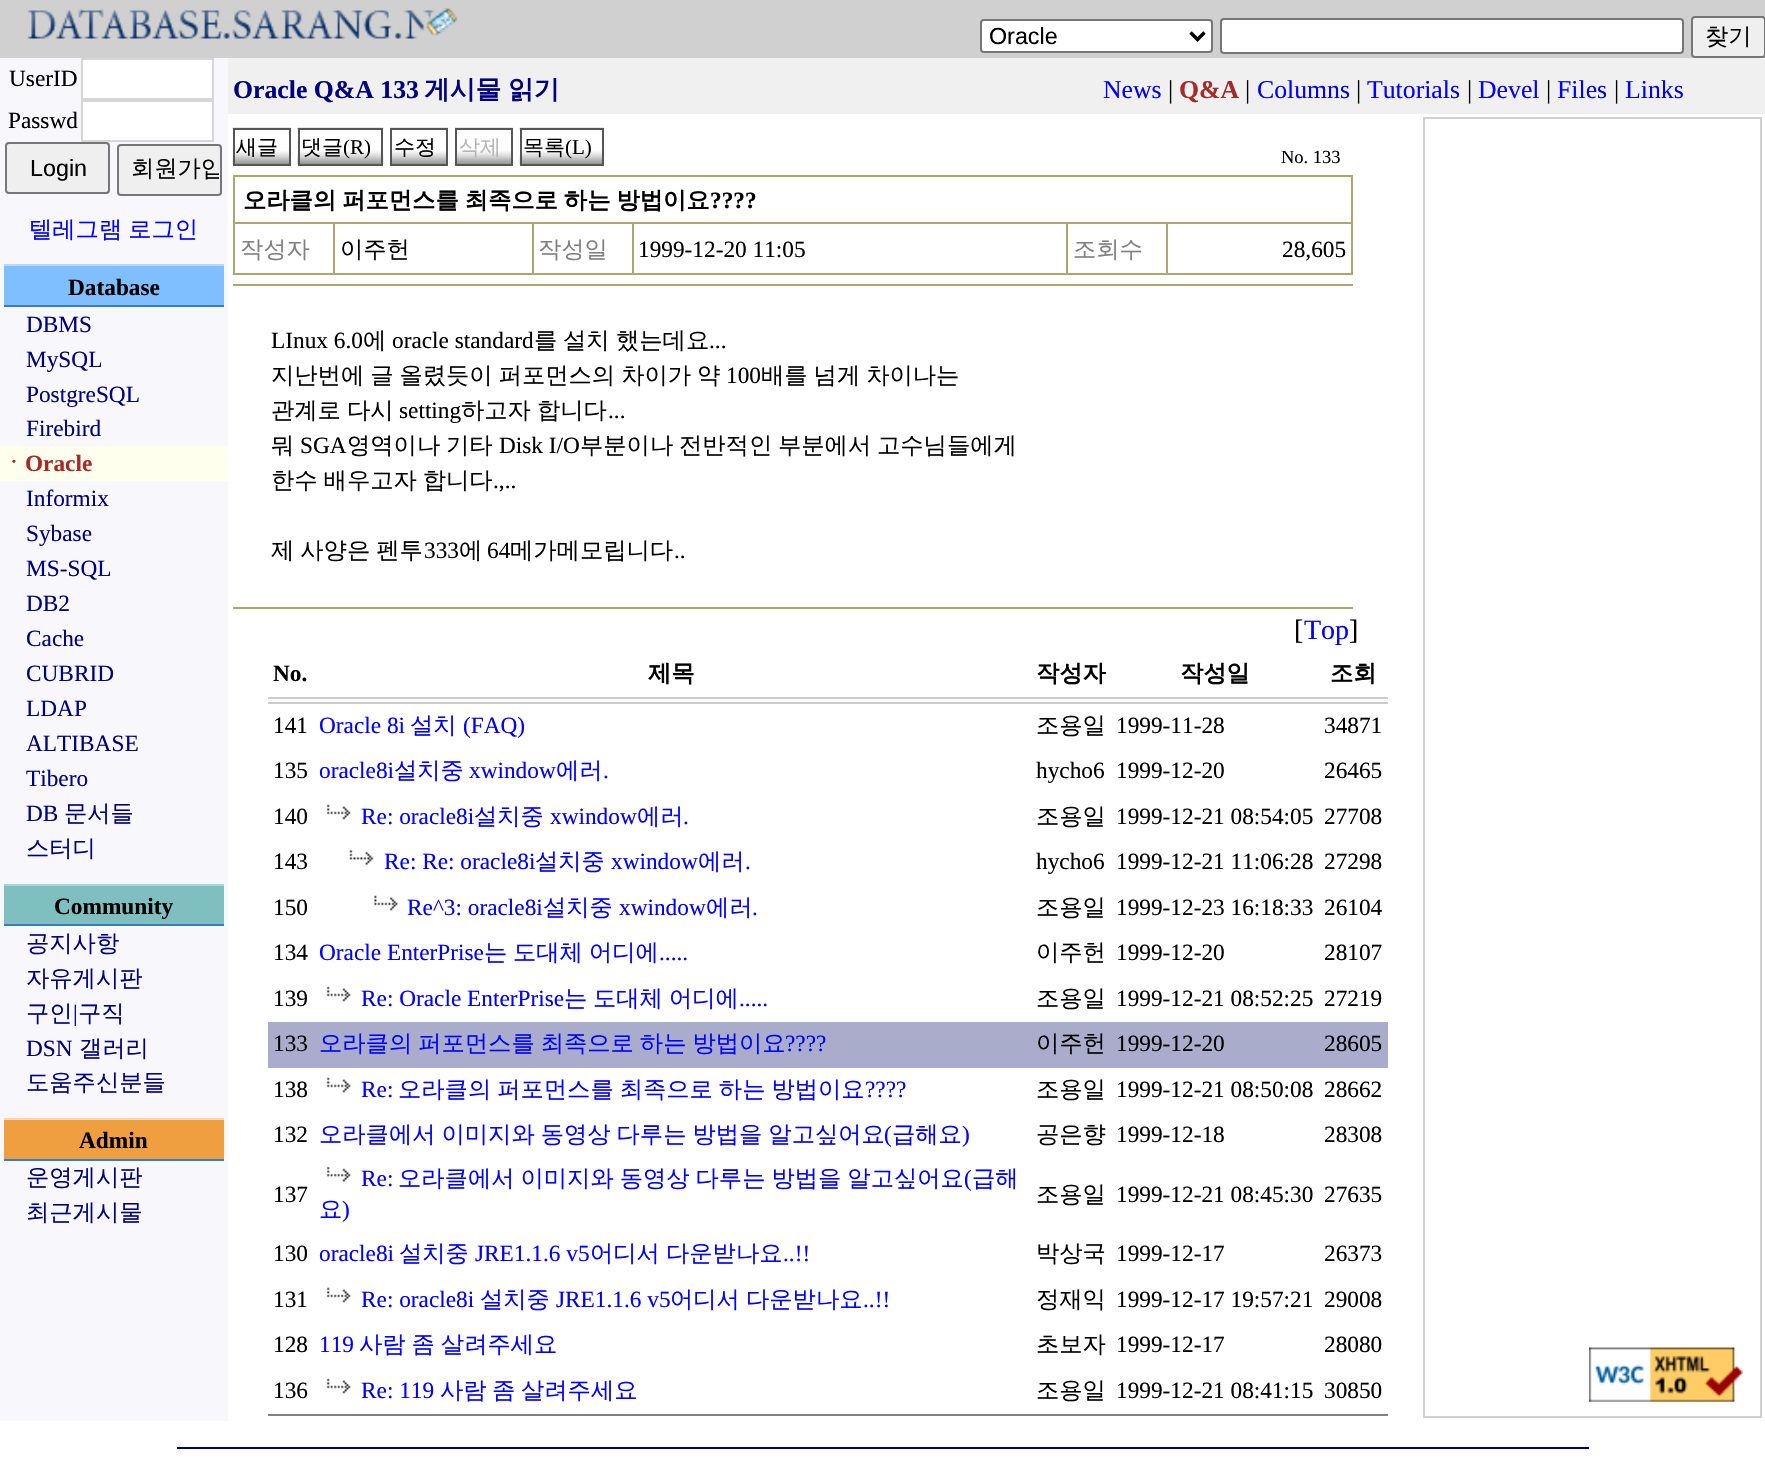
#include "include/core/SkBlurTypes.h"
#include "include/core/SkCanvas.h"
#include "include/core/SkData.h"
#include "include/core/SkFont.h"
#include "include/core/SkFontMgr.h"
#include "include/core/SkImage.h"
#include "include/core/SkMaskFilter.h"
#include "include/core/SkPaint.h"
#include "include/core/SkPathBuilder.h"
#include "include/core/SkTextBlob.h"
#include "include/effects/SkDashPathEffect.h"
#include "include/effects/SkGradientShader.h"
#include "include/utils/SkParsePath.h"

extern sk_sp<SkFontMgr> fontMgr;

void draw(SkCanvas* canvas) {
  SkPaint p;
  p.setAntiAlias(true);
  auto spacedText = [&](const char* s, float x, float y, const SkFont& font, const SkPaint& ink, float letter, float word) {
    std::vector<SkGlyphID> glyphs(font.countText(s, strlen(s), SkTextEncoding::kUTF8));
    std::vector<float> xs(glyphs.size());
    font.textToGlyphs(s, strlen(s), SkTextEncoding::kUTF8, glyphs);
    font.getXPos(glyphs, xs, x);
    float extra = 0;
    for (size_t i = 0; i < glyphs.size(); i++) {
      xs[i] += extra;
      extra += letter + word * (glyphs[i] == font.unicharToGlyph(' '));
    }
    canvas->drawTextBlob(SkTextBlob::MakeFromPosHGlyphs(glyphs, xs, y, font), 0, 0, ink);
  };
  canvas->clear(SK_ColorWHITE);
  p.setColor(SkColorSetRGB(208, 208, 208));
  canvas->drawRect(SkRect::MakeLTRB(0, 0, 1765, 58), p);
  canvas->drawImageRect(SkImages::DeferredFromEncodedData(SkData::MakeFromFileName("images/1.png")), SkRect::MakeLTRB(27, 8, 458, 39), SkSamplingOptions());
  p.setColor(SK_ColorWHITE);
  canvas->drawRoundRect(SkRect::MakeLTRB(981, 20, 1212, 52), 3, 3, p);
  p.setStyle(SkPaint::kStroke_Style);
  p.setStrokeWidth(2);
  p.setColor(SkColorSetRGB(118, 118, 118));
  canvas->drawRoundRect(SkRect::MakeLTRB(981, 20, 1212, 52), 3, 3, p);
  p.setStrokeWidth(3.5f);
  p.setColor(SK_ColorBLACK);
  canvas->drawPath(SkPathBuilder().moveTo(1190.5f, 32.5f).lineTo(1197.5f, 39.5f).lineTo(1204.5f, 32.5f).detach(), p);
  p.setStyle(SkPaint::kFill_Style);
  p.setColor(SK_ColorWHITE);
  canvas->drawRoundRect(SkRect::MakeLTRB(1221, 19, 1683, 53), 3, 3, p);
  p.setStyle(SkPaint::kStroke_Style);
  p.setStrokeWidth(2);
  p.setColor(SkColorSetRGB(118, 118, 118));
  canvas->drawRoundRect(SkRect::MakeLTRB(1221, 19, 1683, 53), 3, 3, p);
  p.setStyle(SkPaint::kFill_Style);
  p.setColor(SkColorSetRGB(239, 239, 239));
  canvas->drawRoundRect(SkRect::MakeLTRB(1692, 17, 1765, 57), 3, 3, p);
  p.setStyle(SkPaint::kStroke_Style);
  p.setColor(SkColorSetRGB(118, 118, 118));
  canvas->drawRoundRect(SkRect::MakeLTRB(1692, 17, 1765, 57), 3, 3, p);
  p.setStyle(SkPaint::kFill_Style);
  p.setColor(SkColorSetRGB(247, 247, 252));
  canvas->drawRect(SkRect::MakeLTRB(0, 58, 228, 1421), p);
  p.setColor(SK_ColorWHITE);
  canvas->drawRect(SkRect::MakeLTRB(82, 59, 213, 99), p);
  p.setStyle(SkPaint::kStroke_Style);
  p.setColor(SkColorSetRGB(214, 214, 214));
  canvas->drawRect(SkRect::MakeLTRB(82, 59, 213, 99), p);
  p.setStyle(SkPaint::kFill_Style);
  p.setColor(SK_ColorWHITE);
  canvas->drawRect(SkRect::MakeLTRB(82, 101, 213, 141), p);
  p.setStyle(SkPaint::kStroke_Style);
  p.setColor(SkColorSetRGB(214, 214, 214));
  canvas->drawRect(SkRect::MakeLTRB(82, 101, 213, 141), p);
  p.setStyle(SkPaint::kFill_Style);
  p.setColor(SkColorSetRGB(239, 239, 239));
  canvas->drawRoundRect(SkRect::MakeLTRB(6, 143, 109, 193), 3, 3, p);
  p.setStyle(SkPaint::kStroke_Style);
  p.setColor(SkColorSetRGB(118, 118, 118));
  canvas->drawRoundRect(SkRect::MakeLTRB(6, 143, 109, 193), 3, 3, p);
  p.setStyle(SkPaint::kFill_Style);
  p.setColor(SkColorSetRGB(239, 239, 239));
  canvas->drawRoundRect(SkRect::MakeLTRB(118, 145, 221, 195), 3, 3, p);
  p.setStyle(SkPaint::kStroke_Style);
  p.setColor(SkColorSetRGB(118, 118, 118));
  canvas->drawRoundRect(SkRect::MakeLTRB(118, 145, 221, 195), 3, 3, p);
  p.setStyle(SkPaint::kFill_Style);
  p.setColor(SkColorSetRGB(128, 191, 255));
  canvas->drawRect(SkRect::MakeLTRB(4, 266, 224, 305), p);
  p.setColor(SkColorSetRGB(187, 215, 252));
  canvas->drawRect(SkRect::MakeLTRB(4, 264, 224, 266), p);
  p.setColor(SkColorSetRGB(55, 125, 197));
  canvas->drawRect(SkRect::MakeLTRB(4, 305, 224, 307), p);
  p.setColor(SkColorSetRGB(255, 255, 238));
  canvas->drawRect(SkRect::MakeLTRB(0, 446, 228, 481), p);
  p.setColor(SkColorSetRGB(127, 191, 192));
  canvas->drawRect(SkRect::MakeLTRB(4, 886, 224, 924), p);
  p.setColor(SkColorSetRGB(165, 216, 221));
  canvas->drawRect(SkRect::MakeLTRB(4, 884, 224, 886), p);
  p.setColor(SkColorSetRGB(55, 125, 197));
  canvas->drawRect(SkRect::MakeLTRB(4, 924, 224, 926), p);
  p.setColor(SkColorSetRGB(239, 159, 63));
  canvas->drawRect(SkRect::MakeLTRB(4, 1120, 224, 1159), p);
  p.setColor(SkColorSetRGB(248, 214, 174));
  canvas->drawRect(SkRect::MakeLTRB(4, 1118, 224, 1120), p);
  p.setColor(SkColorSetRGB(55, 125, 197));
  canvas->drawRect(SkRect::MakeLTRB(4, 1159, 224, 1161), p);
  p.setColor(SkColorSetRGB(240, 240, 240));
  canvas->drawRect(SkRect::MakeLTRB(228, 58, 1765, 114), p);
  canvas->drawImageRect(SkImages::DeferredFromEncodedData(SkData::MakeFromFileName("images/2.png")), SkRect::MakeLTRB(232, 127, 291, 166), SkSamplingOptions());
  p.setStyle(SkPaint::kStroke_Style);
  p.setColor(SkColorSetRGB(85, 85, 85));
  canvas->drawRect(SkRect::MakeLTRB(234, 129, 290, 165), p);
  canvas->drawImageRect(SkImages::DeferredFromEncodedData(SkData::MakeFromFileName("images/3.png")), SkRect::MakeLTRB(297, 127, 384, 166), SkSamplingOptions());
  canvas->drawRect(SkRect::MakeLTRB(299, 129, 382, 165), p);
  canvas->drawImageRect(SkImages::DeferredFromEncodedData(SkData::MakeFromFileName("images/4.png")), SkRect::MakeLTRB(390, 127, 448, 164), SkSamplingOptions());
  canvas->drawRect(SkRect::MakeLTRB(391, 129, 447, 165), p);
  canvas->drawImageRect(SkImages::DeferredFromEncodedData(SkData::MakeFromFileName("images/5.png")), SkRect::MakeLTRB(455, 127, 513, 164), SkSamplingOptions());
  canvas->drawRect(SkRect::MakeLTRB(456, 129, 512, 165), p);
  canvas->drawImageRect(SkImages::DeferredFromEncodedData(SkData::MakeFromFileName("images/6.png")), SkRect::MakeLTRB(519, 127, 604, 166), SkSamplingOptions());
  canvas->drawRect(SkRect::MakeLTRB(521, 129, 603, 165), p);
  p.setStyle(SkPaint::kFill_Style);
  p.setColor(SkColorSetRGB(172, 166, 115));
  canvas->drawRect(SkRect::MakeLTRB(233, 175, 1353, 177), p);
  canvas->drawRect(SkRect::MakeLTRB(233, 175, 235, 275), p);
  canvas->drawRect(SkRect::MakeLTRB(1351, 177, 1353, 275), p);
  canvas->drawRect(SkRect::MakeLTRB(235, 222, 1353, 224), p);
  canvas->drawRect(SkRect::MakeLTRB(333, 224, 335, 275), p);
  canvas->drawRect(SkRect::MakeLTRB(235, 273, 334, 275), p);
  canvas->drawRect(SkRect::MakeLTRB(532, 224, 534, 275), p);
  canvas->drawRect(SkRect::MakeLTRB(334, 273, 534, 275), p);
  canvas->drawRect(SkRect::MakeLTRB(632, 224, 634, 275), p);
  canvas->drawRect(SkRect::MakeLTRB(534, 273, 634, 275), p);
  canvas->drawRect(SkRect::MakeLTRB(1066, 224, 1068, 275), p);
  canvas->drawRect(SkRect::MakeLTRB(634, 273, 1068, 275), p);
  canvas->drawRect(SkRect::MakeLTRB(1166, 224, 1168, 275), p);
  canvas->drawRect(SkRect::MakeLTRB(1068, 273, 1353, 275), p);
  canvas->drawRect(SkRect::MakeLTRB(233, 284, 1353, 286), p);
  canvas->drawRect(SkRect::MakeLTRB(233, 607, 1353, 609), p);
  p.setColor(SkColorSetRGB(128, 128, 128));
  canvas->drawRect(SkRect::MakeLTRB(268, 1414, 1388, 1416), p);
  p.setColor(SkColorSetRGB(204, 204, 204));
  canvas->drawRect(SkRect::MakeLTRB(268, 697, 1388, 699), p);
  canvas->drawRect(SkRect::MakeLTRB(268, 702, 1388, 704), p);
  canvas->drawImageRect(SkImages::DeferredFromEncodedData(SkData::MakeFromFileName("images/7.png")), SkRect::MakeLTRB(326, 804, 351, 820), SkSamplingOptions());
  canvas->drawImageRect(SkImages::DeferredFromEncodedData(SkData::MakeFromFileName("images/8.png")), SkRect::MakeLTRB(349, 850, 374, 865), SkSamplingOptions());
  canvas->drawImageRect(SkImages::DeferredFromEncodedData(SkData::MakeFromFileName("images/9.png")), SkRect::MakeLTRB(374, 895, 398, 911), SkSamplingOptions());
  canvas->drawImageRect(SkImages::DeferredFromEncodedData(SkData::MakeFromFileName("images/7.png")), SkRect::MakeLTRB(326, 986, 351, 1002), SkSamplingOptions());
  p.setColor(SkColorSetRGB(170, 172, 203));
  canvas->drawRect(SkRect::MakeLTRB(268, 1022, 1388, 1068), p);
  canvas->drawImageRect(SkImages::DeferredFromEncodedData(SkData::MakeFromFileName("images/7.png")), SkRect::MakeLTRB(326, 1077, 351, 1093), SkSamplingOptions());
  canvas->drawImageRect(SkImages::DeferredFromEncodedData(SkData::MakeFromFileName("images/10.png")), SkRect::MakeLTRB(326, 1166, 351, 1182), SkSamplingOptions());
  canvas->drawImageRect(SkImages::DeferredFromEncodedData(SkData::MakeFromFileName("images/7.png")), SkRect::MakeLTRB(326, 1287, 351, 1303), SkSamplingOptions());
  canvas->drawImageRect(SkImages::DeferredFromEncodedData(SkData::MakeFromFileName("images/7.png")), SkRect::MakeLTRB(326, 1378, 351, 1394), SkSamplingOptions());
  p.setStyle(SkPaint::kStroke_Style);
  p.setColor(SkColorSetRGB(208, 208, 208));
  canvas->drawRect(SkRect::MakeLTRB(1424, 118, 1761, 1417), p);
  canvas->drawImageRect(SkImages::DeferredFromEncodedData(SkData::MakeFromFileName("images/11.png")), SkRect::MakeLTRB(1589, 1347, 1743, 1402), SkSamplingOptions());
  p.setStyle(SkPaint::kFill_Style);
  p.setColor(SkColorSetRGB(0, 0, 128));
  canvas->drawRect(SkRect::MakeLTRB(177, 1447, 1589, 1449), p);
  SkFont font1(fontMgr->matchFamilyStyle("Liberation Sans", SkFontStyle::Normal()), 23.3f);
  font1.setSubpixel(true);
  p.setColor(SK_ColorBLACK);
  canvas->drawString("Oracle", 989, 44, font1, p);
  SkFont font2(fontMgr->matchFamilyStyle("WenQuanYi Zen Hei", SkFontStyle(500, SkFontStyle::kNormal_Width, SkFontStyle::kUpright_Slant)), 23.3f);
  font2.setSubpixel(true);
  canvas->drawString("찾기", 1705, 44, font2, p);
  SkFont font3(fontMgr->matchFamilyStyle("Liberation Serif", SkFontStyle::Normal()), 23.3f);
  font3.setSubpixel(true);
  canvas->drawString("UserID", 9, 86, font3, p);
  canvas->drawString("Passwd", 8, 128, font3, p);
  canvas->drawString("Login", 30, 176, font1, p);
  canvas->save();
  canvas->clipRect(SkRect::MakeLTRB(121, 147, 219, 193));
  canvas->drawString("회원가입", 131, 176, font2, p);
  canvas->restore();
  p.setColor(SkColorSetRGB(0, 0, 255));
  spacedText("텔레그램 로그인", 29, 237, font2, p, 0, -1);
  SkFont font4(fontMgr->matchFamilyStyle("Liberation Serif", SkFontStyle::Bold()), 23.3f);
  font4.setSubpixel(true);
  p.setColor(SK_ColorBLACK);
  canvas->drawString("Database", 68, 295, font4, p);
  p.setColor(SkColorSetRGB(0, 0, 128));
  canvas->drawString("DBMS", 26, 332, font3, p);
  canvas->drawString("MySQL", 26, 367, font3, p);
  canvas->drawString("PostgreSQL", 26, 402, font3, p);
  canvas->drawString("Firebird", 26, 436, font3, p);
  SkFont font5(fontMgr->matchFamilyStyle("WenQuanYi Zen Hei", SkFontStyle::Bold()), 23.3f);
  font5.setSubpixel(true);
  p.setColor(SkColorSetRGB(165, 42, 42));
  canvas->drawString("ㆍ", 2, 471, font5, p);
  canvas->drawString("Oracle", 25, 471, font4, p);
  p.setColor(SkColorSetRGB(0, 0, 128));
  canvas->drawString("Informix", 26, 506, font3, p);
  canvas->drawString("Sybase", 26, 541, font3, p);
  canvas->drawString("MS-SQL", 26, 576, font3, p);
  canvas->drawString("DB2", 26, 611, font3, p);
  canvas->drawString("Cache", 26, 646, font3, p);
  canvas->drawString("CUBRID", 26, 681, font3, p);
  canvas->drawString("LDAP", 26, 716, font3, p);
  canvas->drawString("ALTIBASE", 26, 751, font3, p);
  canvas->drawString("Tibero", 26, 786, font3, p);
  canvas->drawString("DB", 26, 821, font3, p);
  canvas->drawString("문서들", 64, 821, font2, p);
  canvas->drawString("스터디", 26, 856, font2, p);
  p.setColor(SK_ColorBLACK);
  canvas->drawString("Community", 54, 914, font4, p);
  p.setColor(SkColorSetRGB(0, 0, 128));
  canvas->drawString("공지사항", 26, 951, font2, p);
  canvas->drawString("자유게시판", 26, 986, font2, p);
  canvas->drawString("구인", 26, 1021, font2, p);
  canvas->drawString("|", 73, 1021, font3, p);
  canvas->drawString("구직", 78, 1021, font2, p);
  canvas->drawString("DSN", 26, 1056, font3, p);
  canvas->drawString("갤러리", 79, 1056, font2, p);
  canvas->drawString("도움주신분들", 26, 1090, font2, p);
  p.setColor(SK_ColorBLACK);
  canvas->drawString("Admin", 79, 1148, font4, p);
  p.setColor(SkColorSetRGB(0, 0, 128));
  canvas->drawString("운영게시판", 26, 1185, font2, p);
  canvas->drawString("최근게시물", 26, 1220, font2, p);
  SkFont font6(fontMgr->matchFamilyStyle("Liberation Serif", SkFontStyle::Bold()), 25.75f);
  font6.setSubpixel(true);
  canvas->drawString("Oracle Q&A 133", 233, 98, font6, p);
  SkFont font7(fontMgr->matchFamilyStyle("WenQuanYi Zen Hei", SkFontStyle::Bold()), 25.75f);
  font7.setSubpixel(true);
  canvas->drawString("게시물", 424, 98, font7, p);
  canvas->drawString("읽기", 508, 98, font7, p);
  SkFont font8(fontMgr->matchFamilyStyle("Liberation Serif", SkFontStyle::Normal()), 25.75f);
  font8.setSubpixel(true);
  p.setColor(SkColorSetRGB(0, 0, 255));
  canvas->drawString("News", 1103, 98, font8, p);
  p.setColor(SK_ColorBLACK);
  canvas->drawString("|", 1168, 98, font8, p);
  p.setColor(SkColorSetRGB(165, 42, 42));
  canvas->drawString("Q&A", 1179, 98, font6, p);
  p.setColor(SK_ColorBLACK);
  canvas->drawString("|", 1245, 98, font8, p);
  p.setColor(SkColorSetRGB(0, 0, 255));
  canvas->drawString("Columns", 1257, 98, font8, p);
  p.setColor(SK_ColorBLACK);
  canvas->drawString("|", 1356, 98, font8, p);
  p.setColor(SkColorSetRGB(0, 0, 255));
  canvas->drawString("Tutorials", 1367, 98, font8, p);
  p.setColor(SK_ColorBLACK);
  canvas->drawString("|", 1467, 98, font8, p);
  p.setColor(SkColorSetRGB(0, 0, 255));
  canvas->drawString("Devel", 1478, 98, font8, p);
  p.setColor(SK_ColorBLACK);
  canvas->drawString("|", 1546, 98, font8, p);
  p.setColor(SkColorSetRGB(0, 0, 255));
  canvas->drawString("Files", 1557, 98, font8, p);
  p.setColor(SK_ColorBLACK);
  canvas->drawString("|", 1614, 98, font8, p);
  p.setColor(SkColorSetRGB(0, 0, 255));
  canvas->drawString("Links", 1625, 98, font8, p);
  SkFont font9(fontMgr->matchFamilyStyle("WenQuanYi Zen Hei", SkFontStyle(500, SkFontStyle::kNormal_Width, SkFontStyle::kUpright_Slant)), 21);
  font9.setSubpixel(true);
  p.setColor(SK_ColorBLACK);
  canvas->drawString("새글", 236, 154, font9, p);
  canvas->drawString("댓글", 301, 154, font9, p);
  SkFont font10(fontMgr->matchFamilyStyle("Liberation Serif", SkFontStyle::Normal()), 21);
  font10.setSubpixel(true);
  canvas->drawString("(R)", 343, 154, font10, p);
  canvas->drawString("수정", 394, 154, font9, p);
  p.setColor(SkColorSetRGB(180, 180, 180));
  canvas->drawString("삭제", 459, 154, font9, p);
  p.setColor(SK_ColorBLACK);
  canvas->drawString("목록", 523, 154, font9, p);
  canvas->drawString("(L)", 565, 154, font10, p);
  SkFont font11(fontMgr->matchFamilyStyle("Liberation Serif", SkFontStyle::Normal()), 18.5f);
  font11.setSubpixel(true);
  canvas->drawString("No. 133", 1281, 163, font11, p);
  spacedText("오라클의 퍼포먼스를 최족으로 하는 방법이요", 243, 208, font5, p, 0, -1);
  canvas->drawString("?\077?\077", 710, 208, font4, p);
  p.setColor(SkColorSetRGB(128, 128, 128));
  canvas->drawString("작성자", 240, 257, font2, p);
  p.setColor(SK_ColorBLACK);
  canvas->drawString("이주헌", 340, 257, font2, p);
  p.setColor(SkColorSetRGB(128, 128, 128));
  canvas->drawString("작성일", 538, 257, font2, p);
  p.setColor(SK_ColorBLACK);
  canvas->drawString("1999-12-20 11:05", 638, 257, font3, p);
  p.setColor(SkColorSetRGB(128, 128, 128));
  canvas->drawString("조회수", 1073, 257, font2, p);
  p.setColor(SK_ColorBLACK);
  canvas->drawString("28,605", 1282, 257, font3, p);
  canvas->drawString("LInux 6.0", 271, 348, font3, p);
  canvas->drawString("에", 363, 348, font2, p);
  canvas->drawString("oracle standard", 392, 348, font3, p);
  canvas->drawString("를", 534, 348, font2, p);
  canvas->drawString("설치", 563, 348, font2, p);
  canvas->drawString("했는데요", 616, 348, font2, p);
  canvas->drawString("...", 709, 348, font3, p);
  spacedText("지난번에 글 올렸듯이 퍼포먼스의 차이가 약", 271, 383, font2, p, 0, -1);
  canvas->drawString("100", 726, 383, font3, p);
  spacedText("배를 넘게 차이나는", 761, 383, font2, p, 0, -1);
  spacedText("관계로 다시", 271, 418, font2, p, 0, -1);
  canvas->drawString("setting", 399, 418, font3, p);
  spacedText("하고자 합니다", 461, 418, font2, p, 0, -1);
  canvas->drawString("...", 608, 418, font3, p);
  canvas->drawString("뭐", 271, 453, font2, p);
  canvas->drawString("SGA", 300, 453, font3, p);
  canvas->drawString("영역이나", 347, 453, font2, p);
  canvas->drawString("기타", 446, 453, font2, p);
  canvas->drawString("Disk I/O", 499, 453, font3, p);
  canvas->drawString("부분이나", 580, 453, font2, p);
  canvas->drawString("전반적인", 679, 453, font2, p);
  canvas->drawString("부분에서", 778, 453, font2, p);
  canvas->drawString("고수님들에게", 877, 453, font2, p);
  spacedText("한수 배우고자 합니다", 271, 488, font2, p, 0, -1);
  canvas->drawString(".,..", 493, 488, font3, p);
  spacedText("제 사양은 펜투", 271, 558, font2, p, 0, -1);
  canvas->drawString("333", 424, 558, font3, p);
  canvas->drawString("에", 459, 558, font2, p);
  canvas->drawString("64", 487, 558, font3, p);
  canvas->drawString("메가메모립니다", 510, 558, font2, p);
  canvas->drawString("..", 674, 558, font3, p);
  SkFont font12(fontMgr->matchFamilyStyle("Liberation Serif", SkFontStyle::Normal()), 28);
  font12.setSubpixel(true);
  canvas->drawString("[", 1294, 639, font12, p);
  p.setColor(SkColorSetRGB(0, 0, 255));
  canvas->drawString("Top", 1304, 639, font12, p);
  p.setColor(SK_ColorBLACK);
  canvas->drawString("]", 1349, 639, font12, p);
  canvas->drawString("No.", 273, 681, font4, p);
  canvas->drawString("제목", 648, 681, font5, p);
  canvas->drawString("작성자", 1036, 681, font5, p);
  canvas->drawString("작성일", 1180, 681, font5, p);
  canvas->drawString("조회", 1330, 681, font5, p);
  canvas->drawString("141", 273, 733, font3, p);
  p.setColor(SkColorSetRGB(0, 0, 255));
  canvas->drawString("Oracle 8i", 319, 733, font3, p);
  canvas->drawString("설치", 410, 733, font2, p);
  canvas->drawString("(FAQ)", 463, 733, font3, p);
  p.setColor(SK_ColorBLACK);
  canvas->drawString("조용일", 1036, 733, font2, p);
  canvas->drawString("1999-11-28", 1116, 733, font3, p);
  canvas->drawString("34871", 1324, 733, font3, p);
  canvas->drawString("135", 273, 778, font3, p);
  p.setColor(SkColorSetRGB(0, 0, 255));
  canvas->drawString("oracle8i", 319, 778, font3, p);
  canvas->drawString("설치중", 394, 778, font2, p);
  canvas->drawString("xwindow", 469, 778, font3, p);
  canvas->drawString("에러", 556, 778, font2, p);
  canvas->drawString(".", 603, 778, font3, p);
  p.setColor(SK_ColorBLACK);
  canvas->drawString("hycho6", 1036, 778, font3, p);
  canvas->drawString("1999-12-20", 1116, 778, font3, p);
  canvas->drawString("26465", 1324, 778, font3, p);
  canvas->drawString("140", 273, 824, font3, p);
  p.setColor(SkColorSetRGB(0, 0, 255));
  canvas->drawString("Re: oracle8i", 361, 824, font3, p);
  canvas->drawString("설치중", 474, 824, font2, p);
  canvas->drawString("xwindow", 550, 824, font3, p);
  canvas->drawString("에러", 637, 824, font2, p);
  canvas->drawString(".", 683, 824, font3, p);
  p.setColor(SK_ColorBLACK);
  canvas->drawString("조용일", 1036, 824, font2, p);
  canvas->drawString("1999-12-21 08:54:05", 1116, 824, font3, p);
  canvas->drawString("27708", 1324, 824, font3, p);
  canvas->drawString("143", 273, 869, font3, p);
  p.setColor(SkColorSetRGB(0, 0, 255));
  canvas->drawString("Re: Re: oracle8i", 384, 869, font3, p);
  canvas->drawString("설치중", 535, 869, font2, p);
  canvas->drawString("xwindow", 611, 869, font3, p);
  canvas->drawString("에러", 698, 869, font2, p);
  canvas->drawString(".", 745, 869, font3, p);
  p.setColor(SK_ColorBLACK);
  canvas->drawString("hycho6", 1036, 869, font3, p);
  canvas->drawString("1999-12-21 11:06:28", 1116, 869, font3, p);
  canvas->drawString("27298", 1324, 869, font3, p);
  canvas->drawString("150", 273, 915, font3, p);
  p.setColor(SkColorSetRGB(0, 0, 255));
  canvas->drawString("Re^3: oracle8i", 407, 915, font3, p);
  canvas->drawString("설치중", 543, 915, font2, p);
  canvas->drawString("xwindow", 619, 915, font3, p);
  canvas->drawString("에러", 706, 915, font2, p);
  canvas->drawString(".", 752, 915, font3, p);
  p.setColor(SK_ColorBLACK);
  canvas->drawString("조용일", 1036, 915, font2, p);
  canvas->drawString("1999-12-23 16:18:33", 1116, 915, font3, p);
  canvas->drawString("26104", 1324, 915, font3, p);
  canvas->drawString("134", 273, 960, font3, p);
  p.setColor(SkColorSetRGB(0, 0, 255));
  canvas->drawString("Oracle EnterPrise", 319, 960, font3, p);
  canvas->drawString("는", 484, 960, font2, p);
  canvas->drawString("도대체", 513, 960, font2, p);
  canvas->drawString("어디에", 589, 960, font2, p);
  canvas->drawString(".....", 659, 960, font3, p);
  p.setColor(SK_ColorBLACK);
  canvas->drawString("이주헌", 1036, 960, font2, p);
  canvas->drawString("1999-12-20", 1116, 960, font3, p);
  canvas->drawString("28107", 1324, 960, font3, p);
  canvas->drawString("139", 273, 1006, font3, p);
  p.setColor(SkColorSetRGB(0, 0, 255));
  canvas->drawString("Re: Oracle EnterPrise", 361, 1006, font3, p);
  canvas->drawString("는", 564, 1006, font2, p);
  canvas->drawString("도대체", 593, 1006, font2, p);
  canvas->drawString("어디에", 669, 1006, font2, p);
  canvas->drawString(".....", 739, 1006, font3, p);
  p.setColor(SK_ColorBLACK);
  canvas->drawString("조용일", 1036, 1006, font2, p);
  canvas->drawString("1999-12-21 08:52:25", 1116, 1006, font3, p);
  canvas->drawString("27219", 1324, 1006, font3, p);
  canvas->drawString("133", 273, 1051, font3, p);
  p.setColor(SkColorSetRGB(0, 0, 255));
  spacedText("오라클의 퍼포먼스를 최족으로 하는 방법이요", 319, 1051, font2, p, 0, -1);
  canvas->drawString("?\077?\077", 785, 1051, font3, p);
  p.setColor(SK_ColorBLACK);
  canvas->drawString("이주헌", 1036, 1051, font2, p);
  canvas->drawString("1999-12-20", 1116, 1051, font3, p);
  canvas->drawString("28605", 1324, 1051, font3, p);
  canvas->drawString("138", 273, 1097, font3, p);
  p.setColor(SkColorSetRGB(0, 0, 255));
  canvas->drawString("Re:", 361, 1097, font3, p);
  spacedText("오라클의 퍼포먼스를 최족으로 하는 방법이요", 398, 1097, font2, p, 0, -1);
  canvas->drawString("?\077?\077", 865, 1097, font3, p);
  p.setColor(SK_ColorBLACK);
  canvas->drawString("조용일", 1036, 1097, font2, p);
  canvas->drawString("1999-12-21 08:50:08", 1116, 1097, font3, p);
  canvas->drawString("28662", 1324, 1097, font3, p);
  canvas->drawString("132", 273, 1142, font3, p);
  p.setColor(SkColorSetRGB(0, 0, 255));
  spacedText("오라클에서 이미지와 동영상 다루는 방법을 알고싶어요", 319, 1142, font2, p, 0, -1);
  canvas->drawString("(", 884, 1142, font3, p);
  canvas->drawString("급해요", 892, 1142, font2, p);
  canvas->drawString(")", 962, 1142, font3, p);
  p.setColor(SK_ColorBLACK);
  canvas->drawString("공은향", 1036, 1142, font2, p);
  canvas->drawString("1999-12-18", 1116, 1142, font3, p);
  canvas->drawString("28308", 1324, 1142, font3, p);
  canvas->drawString("137", 273, 1202, font3, p);
  p.setColor(SkColorSetRGB(0, 0, 255));
  canvas->drawString("Re:", 361, 1186, font3, p);
  spacedText("오라클에서 이미지와 동영상 다루는 방법을 알고싶어요", 398, 1186, font2, p, 0, -1);
  canvas->drawString("(", 964, 1186, font3, p);
  canvas->drawString("급해", 972, 1186, font2, p);
  canvas->drawString("요", 319, 1217, font2, p);
  canvas->drawString(")", 342, 1217, font3, p);
  p.setColor(SK_ColorBLACK);
  canvas->drawString("조용일", 1036, 1202, font2, p);
  canvas->drawString("1999-12-21 08:45:30", 1116, 1202, font3, p);
  canvas->drawString("27635", 1324, 1202, font3, p);
  canvas->drawString("130", 273, 1261, font3, p);
  p.setColor(SkColorSetRGB(0, 0, 255));
  canvas->drawString("oracle8i", 319, 1261, font3, p);
  canvas->drawString("설치중", 399, 1261, font2, p);
  canvas->drawString("JRE1.1.6 v5", 475, 1261, font3, p);
  canvas->drawString("어디서", 590, 1261, font2, p);
  canvas->drawString("다운받나요", 666, 1261, font2, p);
  canvas->drawString("..!!", 783, 1261, font3, p);
  p.setColor(SK_ColorBLACK);
  canvas->drawString("박상국", 1036, 1261, font2, p);
  canvas->drawString("1999-12-17", 1116, 1261, font3, p);
  canvas->drawString("26373", 1324, 1261, font3, p);
  canvas->drawString("131", 273, 1307, font3, p);
  p.setColor(SkColorSetRGB(0, 0, 255));
  canvas->drawString("Re: oracle8i", 361, 1307, font3, p);
  canvas->drawString("설치중", 480, 1307, font2, p);
  canvas->drawString("JRE1.1.6 v5", 556, 1307, font3, p);
  canvas->drawString("어디서", 670, 1307, font2, p);
  canvas->drawString("다운받나요", 746, 1307, font2, p);
  canvas->drawString("..!!", 863, 1307, font3, p);
  p.setColor(SK_ColorBLACK);
  canvas->drawString("정재익", 1036, 1307, font2, p);
  canvas->drawString("1999-12-17 19:57:21", 1116, 1307, font3, p);
  canvas->drawString("29008", 1324, 1307, font3, p);
  canvas->drawString("128", 273, 1352, font3, p);
  p.setColor(SkColorSetRGB(0, 0, 255));
  canvas->drawString("119", 319, 1352, font3, p);
  spacedText("사람 좀 살려주세요", 359, 1352, font2, p, 0, -1);
  p.setColor(SK_ColorBLACK);
  canvas->drawString("초보자", 1036, 1352, font2, p);
  canvas->drawString("1999-12-17", 1116, 1352, font3, p);
  canvas->drawString("28080", 1324, 1352, font3, p);
  canvas->drawString("136", 273, 1398, font3, p);
  p.setColor(SkColorSetRGB(0, 0, 255));
  canvas->drawString("Re: 119", 361, 1398, font3, p);
  canvas->drawString("사람", 440, 1398, font2, p);
  canvas->drawString("좀", 492, 1398, font2, p);
  canvas->drawString("살려주세요", 521, 1398, font2, p);
  p.setColor(SK_ColorBLACK);
  canvas->drawString("조용일", 1036, 1398, font2, p);
  canvas->drawString("1999-12-21 08:41:15", 1116, 1398, font3, p);
  canvas->drawString("30850", 1324, 1398, font3, p);
}
